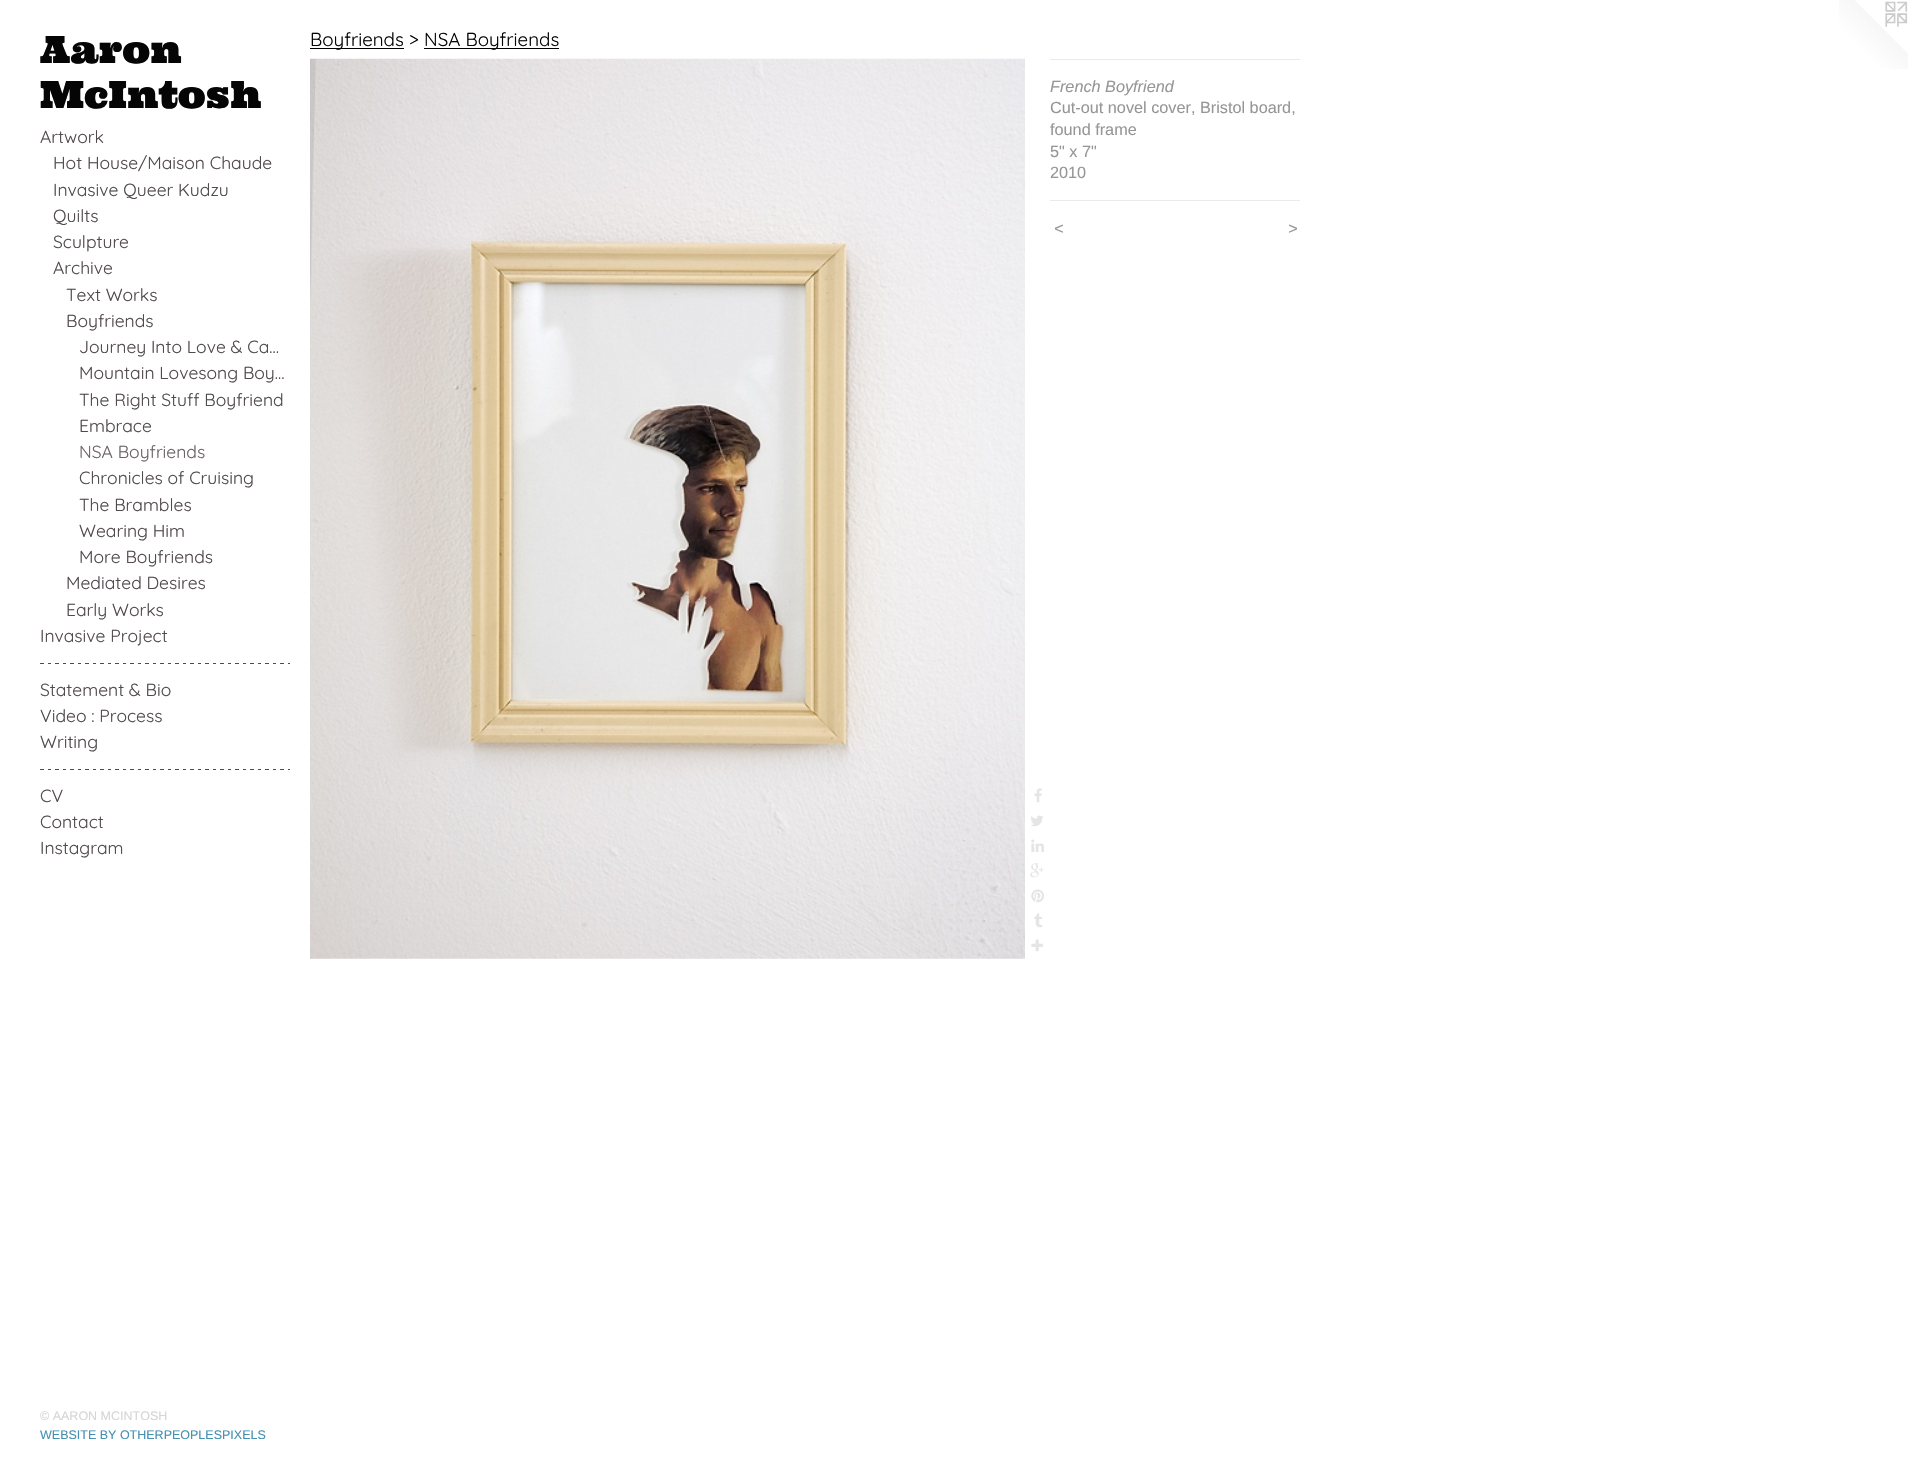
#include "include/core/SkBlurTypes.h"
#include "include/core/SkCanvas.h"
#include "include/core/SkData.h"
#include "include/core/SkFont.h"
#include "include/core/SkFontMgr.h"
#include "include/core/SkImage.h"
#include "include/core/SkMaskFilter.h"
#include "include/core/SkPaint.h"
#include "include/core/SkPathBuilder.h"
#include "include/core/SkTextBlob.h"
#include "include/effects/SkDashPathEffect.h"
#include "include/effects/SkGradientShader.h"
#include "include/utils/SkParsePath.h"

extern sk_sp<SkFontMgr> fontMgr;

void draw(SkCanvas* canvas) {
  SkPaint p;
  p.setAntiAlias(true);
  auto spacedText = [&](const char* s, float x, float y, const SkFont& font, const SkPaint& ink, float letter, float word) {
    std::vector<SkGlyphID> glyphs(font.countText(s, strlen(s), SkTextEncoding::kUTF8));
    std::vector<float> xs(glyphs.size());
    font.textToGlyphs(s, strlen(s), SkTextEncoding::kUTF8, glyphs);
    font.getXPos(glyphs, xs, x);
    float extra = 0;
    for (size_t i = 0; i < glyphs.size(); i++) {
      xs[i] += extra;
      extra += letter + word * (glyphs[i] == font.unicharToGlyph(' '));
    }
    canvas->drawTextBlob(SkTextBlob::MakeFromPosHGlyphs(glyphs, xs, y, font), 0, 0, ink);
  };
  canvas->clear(SK_ColorWHITE);
  canvas->drawImageRect(SkImages::DeferredFromEncodedData(SkData::MakeFromFileName("images/1.png")), SkRect::MakeLTRB(40, 663, 290, 664), SkSamplingOptions());
  canvas->drawImageRect(SkImages::DeferredFromEncodedData(SkData::MakeFromFileName("images/1.png")), SkRect::MakeLTRB(40, 769, 290, 770), SkSamplingOptions());
  p.setColor(SK_ColorBLACK);
  canvas->drawRect(SkRect::MakeLTRB(310, 48, 404, 49), p);
  canvas->drawRect(SkRect::MakeLTRB(424, 48, 559, 49), p);
  canvas->drawImageRect(SkImages::DeferredFromEncodedData(SkData::MakeFromFileName("images/2.png")), SkRect::MakeLTRB(310, 58, 1025, 959), SkSamplingOptions());
  canvas->drawImageRect(SkImages::DeferredFromEncodedData(SkData::MakeFromFileName("images/3.png")), SkRect::MakeLTRB(1034, 788, 1042, 803), SkSamplingOptions());
  canvas->drawImageRect(SkImages::DeferredFromEncodedData(SkData::MakeFromFileName("images/4.png")), SkRect::MakeLTRB(1031, 815, 1043, 827), SkSamplingOptions());
  canvas->drawImageRect(SkImages::DeferredFromEncodedData(SkData::MakeFromFileName("images/5.png")), SkRect::MakeLTRB(1031, 839, 1044, 852), SkSamplingOptions());
  canvas->drawImageRect(SkImages::DeferredFromEncodedData(SkData::MakeFromFileName("images/6.png")), SkRect::MakeLTRB(1030, 863, 1044, 878), SkSamplingOptions());
  canvas->drawImageRect(SkImages::DeferredFromEncodedData(SkData::MakeFromFileName("images/7.png")), SkRect::MakeLTRB(1031, 889, 1044, 903), SkSamplingOptions());
  canvas->drawImageRect(SkImages::DeferredFromEncodedData(SkData::MakeFromFileName("images/8.png")), SkRect::MakeLTRB(1034, 913, 1043, 928), SkSamplingOptions());
  canvas->drawImageRect(SkImages::DeferredFromEncodedData(SkData::MakeFromFileName("images/9.png")), SkRect::MakeLTRB(1031, 939, 1043, 952), SkSamplingOptions());
  p.setColor(SkColorSetRGB(234, 234, 234));
  canvas->drawRect(SkRect::MakeLTRB(1050, 59, 1300, 60), p);
  canvas->drawRect(SkRect::MakeLTRB(1050, 200, 1300, 201), p);
  canvas->drawImageRect(SkImages::DeferredFromEncodedData(SkData::MakeFromFileName("images/10.png")), SkRect::MakeLTRB(1839, 0, 1908, 69), SkSamplingOptions());
  SkFont font1(fontMgr->matchFamilyStyle("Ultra", SkFontStyle::Normal()), 37.5f);
  font1.setSubpixel(true);
  p.setColor(SkColorSetRGB(5, 5, 5));
  canvas->drawString("Aaron", 40, 63, font1, p);
  canvas->drawString("McIntosh", 40, 108, font1, p);
  SkFont font2(fontMgr->matchFamilyStyle("Quicksand", SkFontStyle(300, SkFontStyle::kNormal_Width, SkFontStyle::kUpright_Slant)), 17.5f);
  font2.setSubpixel(true);
  p.setColor(SkColorSetRGB(80, 73, 77));
  canvas->drawString("Artwork", 40, 143, font2, p);
  canvas->drawString("Hot House/Maison Chaude", 53, 169, font2, p);
  canvas->drawString("Invasive Queer Kudzu", 53, 196, font2, p);
  canvas->drawString("Quilts", 53, 222, font2, p);
  canvas->drawString("Sculpture", 53, 248, font2, p);
  canvas->drawString("Archive", 53, 274, font2, p);
  canvas->drawString("Text Works", 66, 301, font2, p);
  canvas->drawString("Boyfriends", 66, 327, font2, p);
  canvas->drawString("Journey Into Love & Ca…", 79, 353, font2, p);
  canvas->drawString("Mountain Lovesong Boy…", 79, 379, font2, p);
  canvas->drawString("The Right Stuff Boyfriend", 79, 406, font2, p);
  canvas->drawString("Embrace", 79, 432, font2, p);
  p.setColor(SkColorSetRGB(107, 97, 103));
  canvas->drawString("NSA Boyfriends", 79, 458, font2, p);
  p.setColor(SkColorSetRGB(80, 73, 77));
  canvas->drawString("Chronicles of Cruising", 79, 484, font2, p);
  canvas->drawString("The Brambles", 79, 511, font2, p);
  canvas->drawString("Wearing Him", 79, 537, font2, p);
  canvas->drawString("More Boyfriends", 79, 563, font2, p);
  canvas->drawString("Mediated Desires", 66, 589, font2, p);
  canvas->drawString("Early Works", 66, 616, font2, p);
  canvas->drawString("Invasive Project", 40, 642, font2, p);
  canvas->drawString("Statement & Bio", 40, 696, font2, p);
  canvas->drawString("Video : Process", 40, 722, font2, p);
  canvas->drawString("Writing", 40, 748, font2, p);
  canvas->drawString("CV", 40, 802, font2, p);
  canvas->drawString("Contact", 40, 828, font2, p);
  canvas->drawString("Instagram", 40, 854, font2, p);
  SkFont font3(fontMgr->matchFamilyStyle("Liberation Sans", SkFontStyle::Normal()), 12.5f);
  font3.setSubpixel(true);
  p.setColor(SkColorSetRGB(214, 214, 214));
  canvas->drawString("© AARON MCINTOSH", 40, 1420, font3, p);
  p.setColor(SkColorSetRGB(69, 144, 176));
  canvas->drawString("WEBSITE BY OTHERPEOPLESPIXELS", 40, 1439, font3, p);
  SkFont font4(fontMgr->matchFamilyStyle("Quicksand", SkFontStyle(300, SkFontStyle::kNormal_Width, SkFontStyle::kUpright_Slant)), 18.75f);
  font4.setSubpixel(true);
  p.setColor(SkColorSetRGB(5, 5, 5));
  canvas->drawString("Boyfriends >", 310, 46, font4, p);
  canvas->drawString("NSA Boyfriends", 424, 46, font4, p);
  SkFont font5(fontMgr->matchFamilyStyle("Liberation Sans", SkFontStyle::Italic()), 16.25f);
  font5.setSubpixel(true);
  p.setColor(SkColorSetRGB(150, 150, 150));
  canvas->drawString("French Boyfriend", 1050, 92, font5, p);
  SkFont font6(fontMgr->matchFamilyStyle("Liberation Sans", SkFontStyle::Normal()), 16.25f);
  font6.setSubpixel(true);
  canvas->drawString("Cut-out novel cover, Bristol board,", 1050, 113, font6, p);
  canvas->drawString("found frame", 1050, 135, font6, p);
  canvas->drawString("5\" x 7\"", 1050, 157, font6, p);
  canvas->drawString("2010", 1050, 178, font6, p);
  spacedText("<", 1054, 234, font5, p, 1, 0);
  spacedText(">", 1288, 234, font5, p, 1, 0);
}
